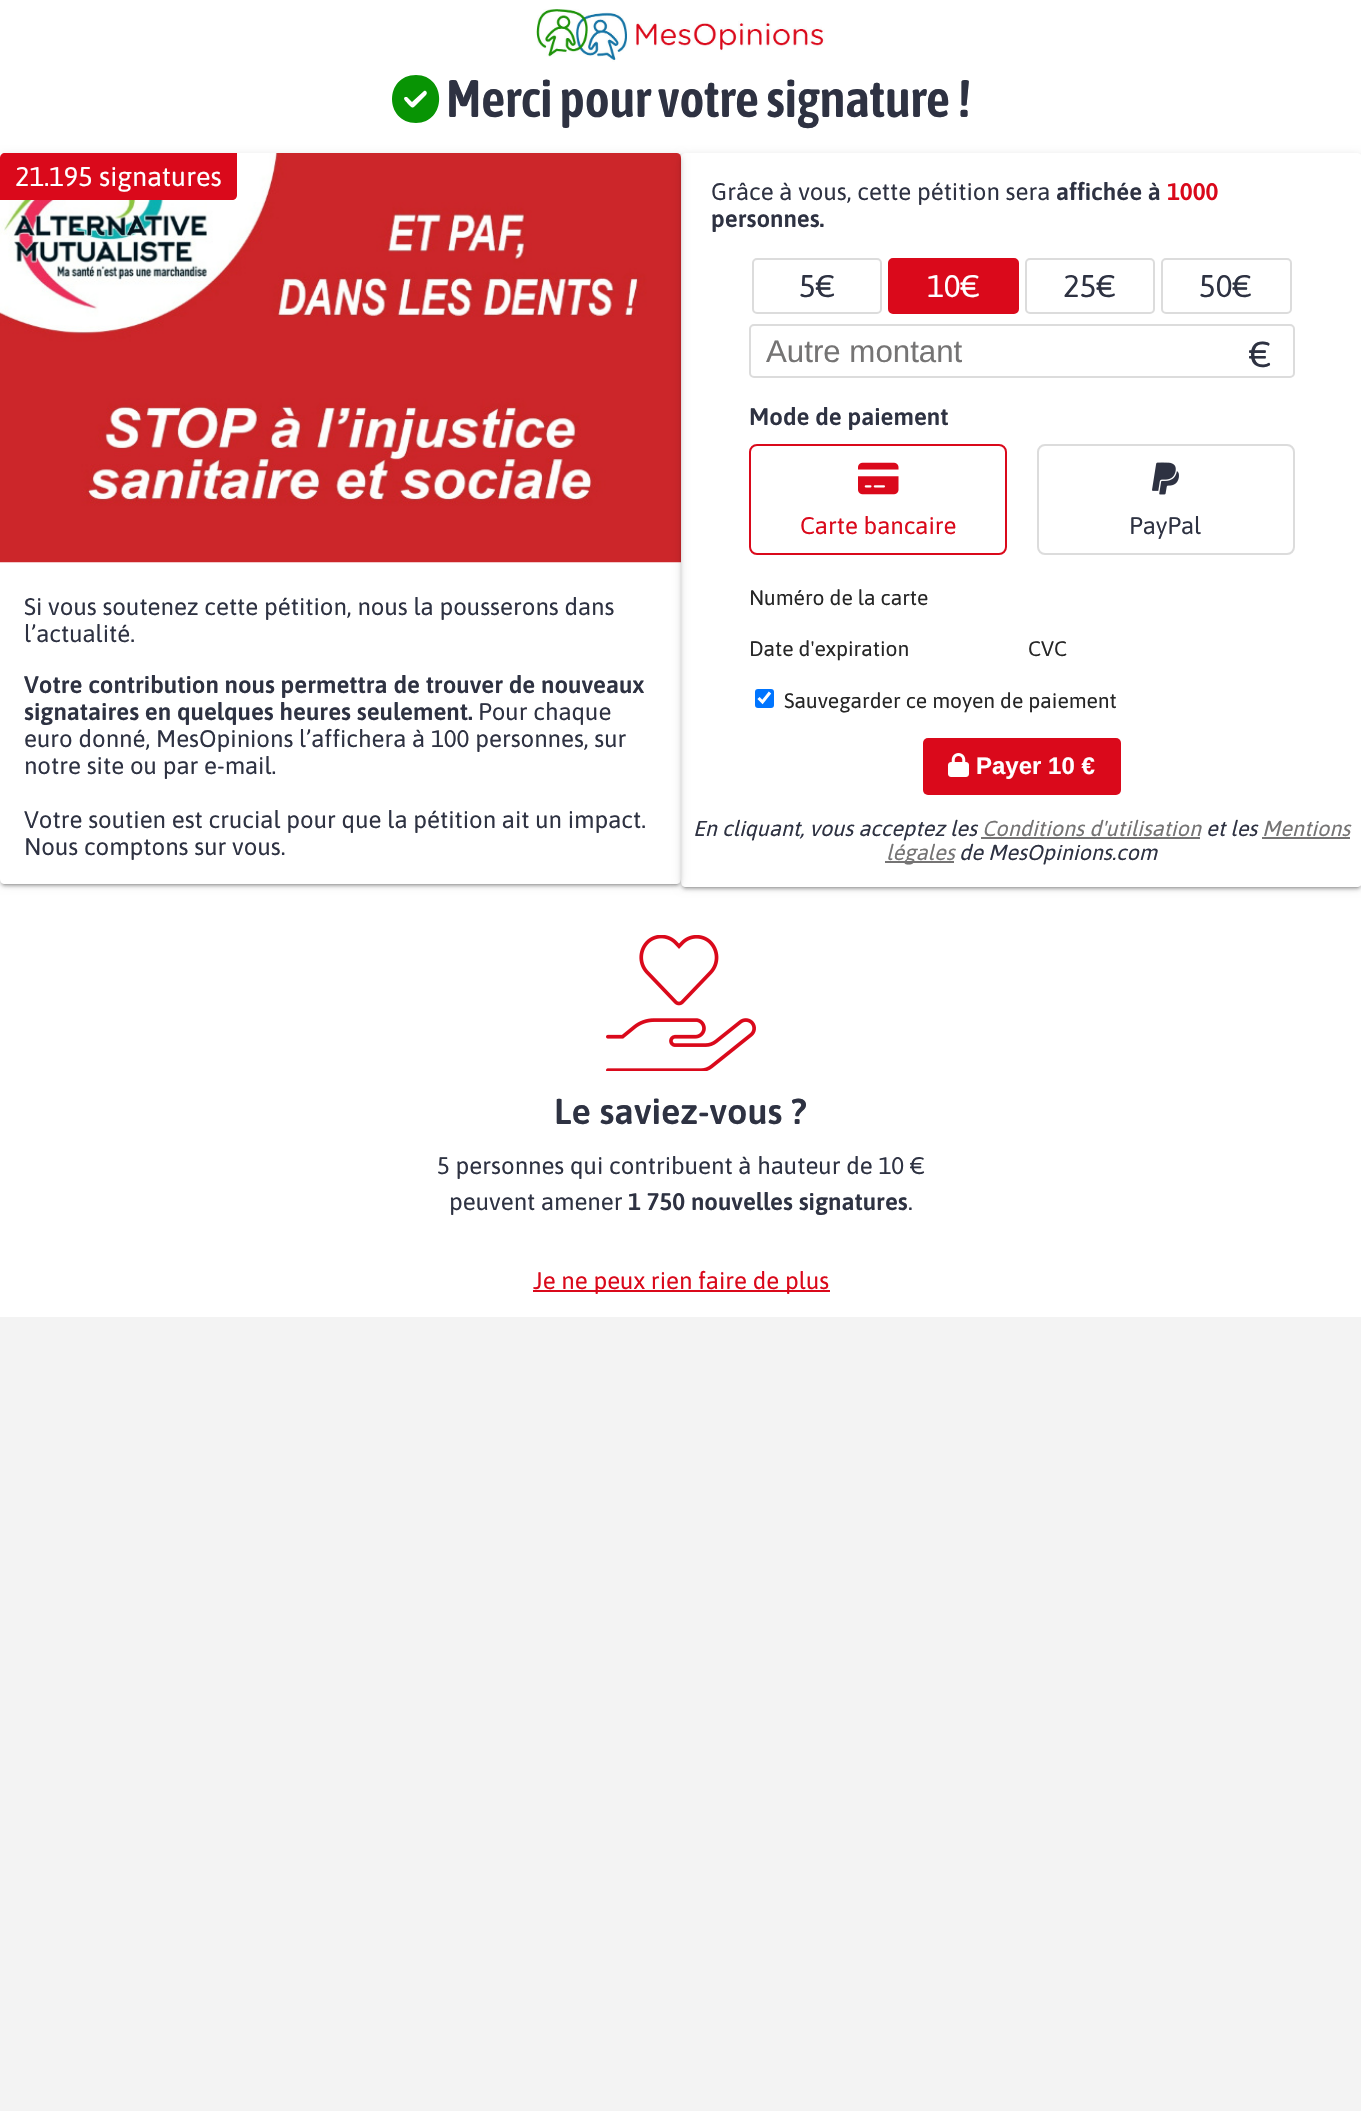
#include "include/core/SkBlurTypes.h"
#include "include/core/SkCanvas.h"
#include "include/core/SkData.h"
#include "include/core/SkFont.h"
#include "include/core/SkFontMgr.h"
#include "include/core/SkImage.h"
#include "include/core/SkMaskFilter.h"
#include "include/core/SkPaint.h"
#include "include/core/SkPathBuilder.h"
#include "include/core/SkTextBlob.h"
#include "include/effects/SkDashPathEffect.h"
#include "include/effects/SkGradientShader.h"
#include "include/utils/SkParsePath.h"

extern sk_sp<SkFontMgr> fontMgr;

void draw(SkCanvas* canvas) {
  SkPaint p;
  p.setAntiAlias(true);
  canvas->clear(SkColorSetRGB(243, 243, 243));
  p.setColor(SK_ColorWHITE);
  canvas->drawRect(SkRect::MakeLTRB(0, 0, 1361, 1317), p);
  canvas->drawImageRect(SkImages::DeferredFromEncodedData(SkData::MakeFromFileName("images/1.png")), SkRect::MakeLTRB(536, 9, 825, 62), SkSamplingOptions());
  p.setColor(SkColorSetRGB(8, 148, 4));
  canvas->drawPath(SkPathBuilder().moveTo(416, 123).cubicTo(447, 123, 447, 75, 416, 75).cubicTo(384, 75, 384, 123, 416, 123).close().moveTo(426, 95).lineTo(414, 107).lineTo(426, 95).lineTo(416, 105).cubicTo(412, 109, 412, 108, 408, 104).cubicTo(407, 102, 402, 99, 405, 97).lineTo(407, 97).lineTo(412, 102).lineTo(424, 91).cubicTo(426, 90, 428, 93, 426, 95).close().detach(), p);
  canvas->save();
  canvas->clipPath(SkPathBuilder(SkPathFillType::kEvenOdd).moveTo(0, 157).lineTo(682, 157).lineTo(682, 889).lineTo(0, 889).close().moveTo(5, 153).lineTo(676, 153).cubicTo(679, 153, 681, 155, 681, 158).lineTo(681, 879).cubicTo(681, 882, 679, 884, 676, 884).lineTo(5, 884).cubicTo(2, 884, 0, 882, 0, 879).lineTo(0, 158).cubicTo(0, 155, 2, 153, 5, 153).close().detach(), true);
  p.setColor(SkColorSetARGB(51, 0, 0, 0));
  p.setMaskFilter(SkMaskFilter::MakeBlur(kNormal_SkBlurStyle, 1));
  canvas->drawRoundRect(SkRect::MakeLTRB(3, 161, 678, 885), 1.5f, 1.5f, p);
  p.setMaskFilter(nullptr);
  canvas->restore();
  canvas->save();
  canvas->clipPath(SkPathBuilder(SkPathFillType::kEvenOdd).moveTo(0, 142).lineTo(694, 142).lineTo(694, 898).lineTo(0, 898).close().moveTo(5, 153).lineTo(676, 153).cubicTo(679, 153, 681, 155, 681, 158).lineTo(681, 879).cubicTo(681, 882, 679, 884, 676, 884).lineTo(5, 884).cubicTo(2, 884, 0, 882, 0, 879).lineTo(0, 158).cubicTo(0, 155, 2, 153, 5, 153).close().detach(), true);
  p.setColor(SkColorSetARGB(31, 0, 0, 0));
  p.setMaskFilter(SkMaskFilter::MakeBlur(kNormal_SkBlurStyle, 4));
  canvas->drawRoundRect(SkRect::MakeLTRB(0, 155, 681, 885), 5, 5, p);
  p.setMaskFilter(nullptr);
  canvas->restore();
  canvas->save();
  canvas->clipPath(SkPathBuilder(SkPathFillType::kEvenOdd).moveTo(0, 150).lineTo(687, 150).lineTo(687, 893).lineTo(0, 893).close().moveTo(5, 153).lineTo(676, 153).cubicTo(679, 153, 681, 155, 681, 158).lineTo(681, 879).cubicTo(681, 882, 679, 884, 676, 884).lineTo(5, 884).cubicTo(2, 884, 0, 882, 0, 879).lineTo(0, 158).cubicTo(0, 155, 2, 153, 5, 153).close().detach(), true);
  p.setColor(SkColorSetARGB(36, 0, 0, 0));
  p.setMaskFilter(SkMaskFilter::MakeBlur(kNormal_SkBlurStyle, 1.5f));
  canvas->drawRoundRect(SkRect::MakeLTRB(0, 156, 681, 887), 5, 5, p);
  p.setMaskFilter(nullptr);
  canvas->restore();
  canvas->drawImageRect(SkImages::DeferredFromEncodedData(SkData::MakeFromFileName("images/2.png")), SkRect::MakeLTRB(0, 153, 681, 563), SkSamplingOptions());
  p.setColor(SkColorSetRGB(218, 9, 27));
  canvas->drawPath(SkPathBuilder().moveTo(5, 153).lineTo(237, 153).lineTo(237, 195).cubicTo(237, 198, 235, 200, 232, 200).lineTo(0, 200).lineTo(0, 158).cubicTo(0, 155, 2, 153, 5, 153).close().detach(), p);
  canvas->save();
  canvas->clipPath(SkPathBuilder(SkPathFillType::kEvenOdd).moveTo(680, 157).lineTo(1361, 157).lineTo(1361, 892).lineTo(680, 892).close().moveTo(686, 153).lineTo(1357, 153).cubicTo(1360, 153, 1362, 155, 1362, 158).lineTo(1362, 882).cubicTo(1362, 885, 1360, 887, 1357, 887).lineTo(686, 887).cubicTo(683, 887, 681, 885, 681, 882).lineTo(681, 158).cubicTo(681, 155, 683, 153, 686, 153).close().detach(), true);
  p.setColor(SkColorSetARGB(51, 0, 0, 0));
  p.setMaskFilter(SkMaskFilter::MakeBlur(kNormal_SkBlurStyle, 1));
  canvas->drawRoundRect(SkRect::MakeLTRB(684, 161, 1359, 888), 1.5f, 1.5f, p);
  p.setMaskFilter(nullptr);
  canvas->restore();
  canvas->save();
  canvas->clipPath(SkPathBuilder(SkPathFillType::kEvenOdd).moveTo(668, 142).lineTo(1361, 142).lineTo(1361, 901).lineTo(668, 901).close().moveTo(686, 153).lineTo(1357, 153).cubicTo(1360, 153, 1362, 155, 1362, 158).lineTo(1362, 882).cubicTo(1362, 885, 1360, 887, 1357, 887).lineTo(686, 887).cubicTo(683, 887, 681, 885, 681, 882).lineTo(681, 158).cubicTo(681, 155, 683, 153, 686, 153).close().detach(), true);
  p.setColor(SkColorSetARGB(31, 0, 0, 0));
  p.setMaskFilter(SkMaskFilter::MakeBlur(kNormal_SkBlurStyle, 4));
  canvas->drawRoundRect(SkRect::MakeLTRB(681, 155, 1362, 888), 5, 5, p);
  p.setMaskFilter(nullptr);
  canvas->restore();
  canvas->save();
  canvas->clipPath(SkPathBuilder(SkPathFillType::kEvenOdd).moveTo(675, 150).lineTo(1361, 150).lineTo(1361, 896).lineTo(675, 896).close().moveTo(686, 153).lineTo(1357, 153).cubicTo(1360, 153, 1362, 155, 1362, 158).lineTo(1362, 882).cubicTo(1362, 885, 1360, 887, 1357, 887).lineTo(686, 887).cubicTo(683, 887, 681, 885, 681, 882).lineTo(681, 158).cubicTo(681, 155, 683, 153, 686, 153).close().detach(), true);
  p.setColor(SkColorSetARGB(36, 0, 0, 0));
  p.setMaskFilter(SkMaskFilter::MakeBlur(kNormal_SkBlurStyle, 1.5f));
  canvas->drawRoundRect(SkRect::MakeLTRB(681, 156, 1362, 890), 5, 5, p);
  p.setMaskFilter(nullptr);
  canvas->restore();
  p.setStyle(SkPaint::kStroke_Style);
  p.setStrokeWidth(2);
  p.setColor(SkColorSetRGB(220, 220, 220));
  canvas->drawRoundRect(SkRect::MakeLTRB(753, 259, 881, 313), 4, 4, p);
  p.setStyle(SkPaint::kFill_Style);
  p.setColor(SkColorSetRGB(218, 9, 27));
  canvas->drawRoundRect(SkRect::MakeLTRB(889, 259, 1018, 313), 4, 4, p);
  p.setStyle(SkPaint::kStroke_Style);
  canvas->drawRoundRect(SkRect::MakeLTRB(889, 259, 1018, 313), 4, 4, p);
  p.setColor(SkColorSetRGB(220, 220, 220));
  canvas->drawRoundRect(SkRect::MakeLTRB(1026, 259, 1154, 313), 4, 4, p);
  canvas->drawRoundRect(SkRect::MakeLTRB(1162, 259, 1291, 313), 4, 4, p);
  canvas->drawRoundRect(SkRect::MakeLTRB(750, 325, 1294, 377), 4, 4, p);
  p.setColor(SkColorSetRGB(218, 9, 27));
  canvas->drawRoundRect(SkRect::MakeLTRB(750, 445, 1006, 554), 7, 7, p);
  canvas->drawImageRect(SkImages::DeferredFromEncodedData(SkData::MakeFromFileName("images/3.png")), SkRect::MakeLTRB(858, 462, 899, 495), SkSamplingOptions());
  p.setColor(SkColorSetRGB(220, 220, 220));
  canvas->drawRoundRect(SkRect::MakeLTRB(1038, 445, 1294, 554), 7, 7, p);
  canvas->drawImageRect(SkImages::DeferredFromEncodedData(SkData::MakeFromFileName("images/4.png")), SkRect::MakeLTRB(1152, 462, 1179, 495), SkSamplingOptions());
  p.setStyle(SkPaint::kFill_Style);
  p.setColor(SkColorSetRGB(0, 117, 255));
  canvas->drawRoundRect(SkRect::MakeLTRB(755, 689, 774, 708), 3, 3, p);
  p.setStyle(SkPaint::kStroke_Style);
  p.setStrokeWidth(3.1f);
  p.setColor(SK_ColorWHITE);
  canvas->drawPath(SkPathBuilder().moveTo(758.5f, 698).lineTo(762.5f, 702).lineTo(770, 692.5f).detach(), p);
  p.setStyle(SkPaint::kFill_Style);
  p.setColor(SkColorSetRGB(218, 9, 27));
  canvas->drawRoundRect(SkRect::MakeLTRB(923, 738, 1121, 795), 5, 5, p);
  canvas->drawImageRect(SkImages::DeferredFromEncodedData(SkData::MakeFromFileName("images/5.png")), SkRect::MakeLTRB(948, 753, 969, 777), SkSamplingOptions());
  p.setColor(SkColorSetRGB(117, 116, 116));
  canvas->drawRect(SkRect::MakeLTRB(981, 837, 1200, 839), p);
  canvas->drawRect(SkRect::MakeLTRB(1262, 837, 1350, 839), p);
  canvas->drawRect(SkRect::MakeLTRB(885, 861, 954, 863), p);
  canvas->drawImageRect(SkImages::DeferredFromEncodedData(SkData::MakeFromFileName("images/6.png")), SkRect::MakeLTRB(606, 935, 756, 1071), SkSamplingOptions());
  p.setColor(SkColorSetRGB(218, 9, 27));
  canvas->drawRect(SkRect::MakeLTRB(533, 1290, 830, 1292), p);
  SkFont font1(fontMgr->matchFamilyStyle("Asap Condensed", SkFontStyle(600, SkFontStyle::kNormal_Width, SkFontStyle::kUpright_Slant)), 52.75f);
  font1.setSubpixel(true);
  p.setColor(SkColorSetRGB(46, 50, 66));
  canvas->drawString("Merci pour votre signature !", 446, 117, font1, p);
  SkFont font2(fontMgr->matchFamilyStyle("Asap", SkFontStyle::Normal()), 27);
  font2.setSubpixel(true);
  p.setColor(SK_ColorWHITE);
  canvas->drawString("21.195 signatures", 15, 186, font2, p);
  SkFont font3(fontMgr->matchFamilyStyle("Asap", SkFontStyle::Normal()), 24);
  font3.setSubpixel(true);
  p.setColor(SkColorSetRGB(46, 50, 66));
  canvas->drawString("Si vous soutenez cette pétition, nous la pousserons dans", 24, 615, font3, p);
  canvas->drawString("l’actualité.", 24, 642, font3, p);
  SkFont font4(fontMgr->matchFamilyStyle("Asap", SkFontStyle(600, SkFontStyle::kNormal_Width, SkFontStyle::kUpright_Slant)), 24);
  font4.setSubpixel(true);
  canvas->drawString("Votre contribution nous permettra de trouver de nouveaux", 24, 693, font4, p);
  canvas->drawString("signataires en quelques heures seulement.", 24, 720, font4, p);
  canvas->drawString("Pour chaque", 478, 720, font3, p);
  canvas->drawString("euro donné, MesOpinions l’affichera à 100 personnes, sur", 24, 747, font3, p);
  canvas->drawString("notre site ou par e-mail.", 24, 774, font3, p);
  canvas->drawString("Votre soutien est crucial pour que la pétition ait un impact.", 24, 828, font3, p);
  canvas->drawString("Nous comptons sur vous.", 24, 855, font3, p);
  canvas->drawString("Grâce à vous, cette pétition sera", 711, 200, font3, p);
  canvas->drawString("affichée à", 1056, 200, font4, p);
  p.setColor(SkColorSetRGB(218, 9, 27));
  canvas->drawString("1000", 1167, 200, font4, p);
  p.setColor(SkColorSetRGB(46, 50, 66));
  canvas->drawString("personnes.", 711, 227, font4, p);
  SkFont font5(fontMgr->matchFamilyStyle("Asap", SkFontStyle::Normal()), 31.25f);
  font5.setSubpixel(true);
  canvas->drawString("5€", 799, 297, font5, p);
  p.setColor(SK_ColorWHITE);
  canvas->drawString("10€", 927, 297, font5, p);
  p.setColor(SkColorSetRGB(46, 50, 66));
  canvas->drawString("25€", 1063, 297, font5, p);
  canvas->drawString("50€", 1199, 297, font5, p);
  SkFont font6(fontMgr->matchFamilyStyle("Liberation Sans", SkFontStyle::Normal()), 31.25f);
  font6.setSubpixel(true);
  p.setColor(SkColorSetRGB(117, 116, 116));
  canvas->drawString("Autre montant", 766, 362, font6, p);
  SkFont font7(fontMgr->matchFamilyStyle("Asap", SkFontStyle::Normal()), 36);
  font7.setSubpixel(true);
  p.setColor(SkColorSetRGB(46, 50, 66));
  canvas->drawString("€", 1249, 367, font7, p);
  canvas->drawString("Mode de paiement", 749, 425, font4, p);
  p.setColor(SkColorSetRGB(218, 9, 27));
  canvas->drawString("Carte bancaire", 800, 534, font3, p);
  p.setColor(SkColorSetRGB(46, 50, 66));
  canvas->drawString("PayPal", 1129, 534, font3, p);
  SkFont font8(fontMgr->matchFamilyStyle("Asap", SkFontStyle::Normal()), 21);
  font8.setSubpixel(true);
  p.setColor(SkColorSetRGB(38, 38, 38));
  canvas->drawString("Numéro de la carte", 749, 605, font8, p);
  canvas->drawString("Date d'expiration", 749, 656, font8, p);
  canvas->drawString("CVC", 1028, 656, font8, p);
  canvas->drawString("Sauvegarder ce moyen de paiement", 784, 708, font8, p);
  SkFont font9(fontMgr->matchFamilyStyle("Liberation Sans", SkFontStyle::Bold()), 24);
  font9.setSubpixel(true);
  p.setColor(SK_ColorWHITE);
  canvas->drawString("Payer 10 €", 976, 774, font9, p);
  SkFont font10(fontMgr->matchFamilyStyle("Asap", SkFontStyle::Italic()), 21.6f);
  font10.setSubpixel(true);
  p.setColor(SkColorSetRGB(46, 50, 66));
  canvas->drawString("En cliquant, vous acceptez les", 693, 836, font10, p);
  p.setColor(SkColorSetRGB(117, 116, 116));
  canvas->drawString("Conditions d'utilisation", 982, 836, font10, p);
  p.setColor(SkColorSetRGB(46, 50, 66));
  canvas->drawString("et les", 1206, 836, font10, p);
  p.setColor(SkColorSetRGB(117, 116, 116));
  canvas->drawString("Mentions", 1262, 836, font10, p);
  canvas->drawString("légales", 886, 860, font10, p);
  p.setColor(SkColorSetRGB(46, 50, 66));
  canvas->drawString("de MesOpinions.com", 959, 860, font10, p);
  SkFont font11(fontMgr->matchFamilyStyle("Asap", SkFontStyle(600, SkFontStyle::kNormal_Width, SkFontStyle::kUpright_Slant)), 36);
  font11.setSubpixel(true);
  canvas->drawString("Le saviez-vous ?", 554, 1124, font11, p);
  canvas->drawString("5 personnes qui contribuent à hauteur de 10 €", 437, 1174, font3, p);
  canvas->drawString("peuvent amener", 449, 1210, font3, p);
  canvas->drawString("1 750 nouvelles signatures", 628, 1210, font4, p);
  canvas->drawString(".", 908, 1210, font3, p);
  p.setColor(SkColorSetRGB(218, 9, 27));
  canvas->drawString("Je ne peux rien faire de plus", 533, 1289, font3, p);
}
